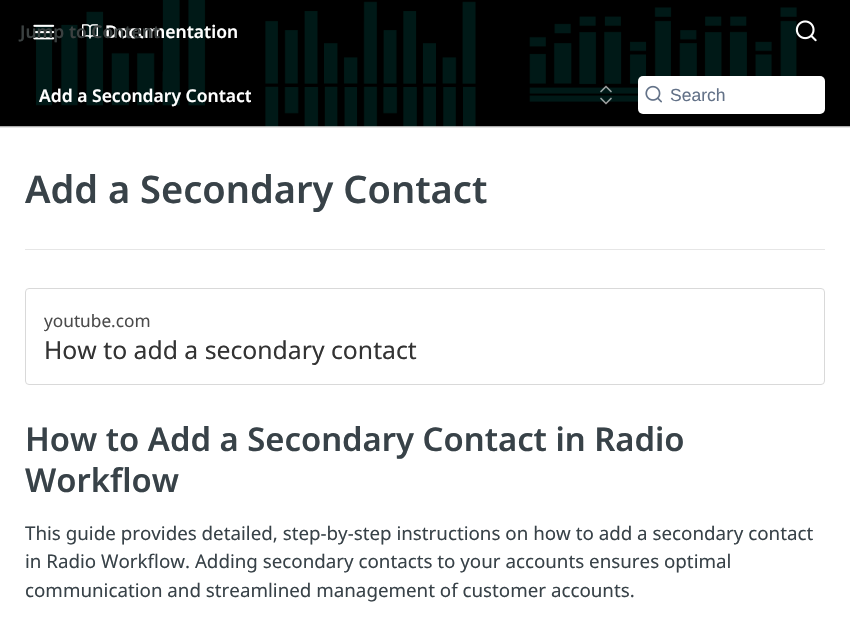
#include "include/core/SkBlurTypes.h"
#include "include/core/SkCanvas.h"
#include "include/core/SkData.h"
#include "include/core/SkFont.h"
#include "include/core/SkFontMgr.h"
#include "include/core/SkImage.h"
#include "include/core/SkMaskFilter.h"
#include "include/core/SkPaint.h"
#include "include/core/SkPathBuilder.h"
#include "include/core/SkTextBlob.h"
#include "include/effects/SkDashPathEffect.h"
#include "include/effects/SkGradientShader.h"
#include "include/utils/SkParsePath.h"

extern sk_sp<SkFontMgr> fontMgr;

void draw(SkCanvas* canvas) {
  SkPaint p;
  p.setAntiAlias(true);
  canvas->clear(SK_ColorWHITE);
  p.setColor(SkColorSetRGB(230, 230, 230));
  canvas->drawRect(SkRect::MakeLTRB(0, 126, 850, 128), p);
  canvas->drawImageRect(SkImages::DeferredFromEncodedData(SkData::MakeFromFileName("images/1.png")), SkRect::MakeLTRB(0, 0, 850, 127), SkSamplingOptions());
  canvas->drawImageRect(SkImages::DeferredFromEncodedData(SkData::MakeFromFileName("images/2.png")), SkRect::MakeLTRB(33, 24, 55, 40), SkSamplingOptions());
  canvas->drawImageRect(SkImages::DeferredFromEncodedData(SkData::MakeFromFileName("images/3.png")), SkRect::MakeLTRB(82, 24, 98, 39), SkSamplingOptions());
  canvas->drawImageRect(SkImages::DeferredFromEncodedData(SkData::MakeFromFileName("images/4.png")), SkRect::MakeLTRB(795, 20, 817, 42), SkSamplingOptions());
  p.setStyle(SkPaint::kStroke_Style);
  p.setStrokeWidth(1.7f);
  p.setStrokeCap(SkPaint::kRound_Cap);
  p.setStrokeJoin(SkPaint::kRound_Join);
  p.setColor(SkColorSetARGB(153, 255, 255, 255));
  canvas->drawPath(SkPathBuilder().moveTo(601, 98.5f).lineTo(606, 103.5f).lineTo(611, 98.5f).moveTo(611, 91.5f).lineTo(606, 86.5f).lineTo(601, 91.5f).detach(), p);
  p.setStyle(SkPaint::kFill_Style);
  p.setColor(SK_ColorWHITE);
  canvas->drawRoundRect(SkRect::MakeLTRB(638, 76, 825, 114), 5, 5, p);
  canvas->drawImageRect(SkImages::DeferredFromEncodedData(SkData::MakeFromFileName("images/5.png")), SkRect::MakeLTRB(645, 85, 662, 103), SkSamplingOptions());
  p.setColor(SkColorSetRGB(230, 230, 230));
  canvas->drawRect(SkRect::MakeLTRB(25, 249, 825, 250), p);
  p.setStyle(SkPaint::kStroke_Style);
  p.setStrokeWidth(1);
  p.setStrokeCap(SkPaint::kButt_Cap);
  p.setStrokeJoin(SkPaint::kMiter_Join);
  p.setColor(SkColorSetRGB(217, 217, 217));
  canvas->drawRoundRect(SkRect::MakeLTRB(25.5f, 288.5f, 824.5f, 384.5f), 3.5f, 3.5f, p);
  SkFont font1(fontMgr->matchFamilyStyle("Noto Sans", SkFontStyle(600, SkFontStyle::kNormal_Width, SkFontStyle::kUpright_Slant)), 17.5f);
  font1.setSubpixel(true);
  p.setStyle(SkPaint::kFill_Style);
  p.setColor(SK_ColorWHITE);
  canvas->drawString("Documentation", 105, 38, font1, p);
  p.setColor(SkColorSetRGB(59, 65, 65));
  canvas->drawString("Jump to Content", 20, 38, font1, p);
  canvas->save();
  canvas->clipRect(SkRect::MakeLTRB(39, 83, 251, 108));
  p.setColor(SK_ColorWHITE);
  canvas->drawString("Add a Secondary Contact", 39, 102, font1, p);
  canvas->restore();
  SkFont font2(fontMgr->matchFamilyStyle("Liberation Sans", SkFontStyle::Normal()), 17.5f);
  font2.setSubpixel(true);
  p.setColor(SkColorSetRGB(99, 114, 136));
  canvas->drawString("Search", 670, 101, font2, p);
  SkFont font3(fontMgr->matchFamilyStyle("Noto Sans", SkFontStyle(600, SkFontStyle::kNormal_Width, SkFontStyle::kUpright_Slant)), 38);
  font3.setSubpixel(true);
  p.setColor(SkColorSetRGB(56, 66, 72));
  canvas->drawString("Add a Secondary Contact", 25, 203, font3, p);
  SkFont font4(fontMgr->matchFamilyStyle("Noto Sans", SkFontStyle::Normal()), 17.25f);
  font4.setSubpixel(true);
  p.setColor(SkColorSetRGB(75, 75, 75));
  canvas->drawString("youtube.com", 44, 327, font4, p);
  SkFont font5(fontMgr->matchFamilyStyle("Noto Sans", SkFontStyle::Normal()), 24.75f);
  font5.setSubpixel(true);
  p.setColor(SkColorSetRGB(51, 51, 51));
  canvas->drawString("How to add a secondary contact", 44, 359, font5, p);
  SkFont font6(fontMgr->matchFamilyStyle("Noto Sans", SkFontStyle(600, SkFontStyle::kNormal_Width, SkFontStyle::kUpright_Slant)), 32.8f);
  font6.setSubpixel(true);
  p.setColor(SkColorSetRGB(56, 66, 72));
  canvas->drawString("How to Add a Secondary Contact in Radio", 25, 451, font6, p);
  canvas->drawString("Workflow", 25, 492, font6, p);
  SkFont font7(fontMgr->matchFamilyStyle("Noto Sans", SkFontStyle::Normal()), 18.75f);
  font7.setSubpixel(true);
  canvas->drawString("This guide provides detailed, step-by-step instructions on how to add a secondary contact", 25, 540, font7, p);
  canvas->drawString("in Radio Workflow. Adding secondary contacts to your accounts ensures optimal", 25, 568, font7, p);
  canvas->drawString("communication and streamlined management of customer accounts.", 25, 597, font7, p);
}
